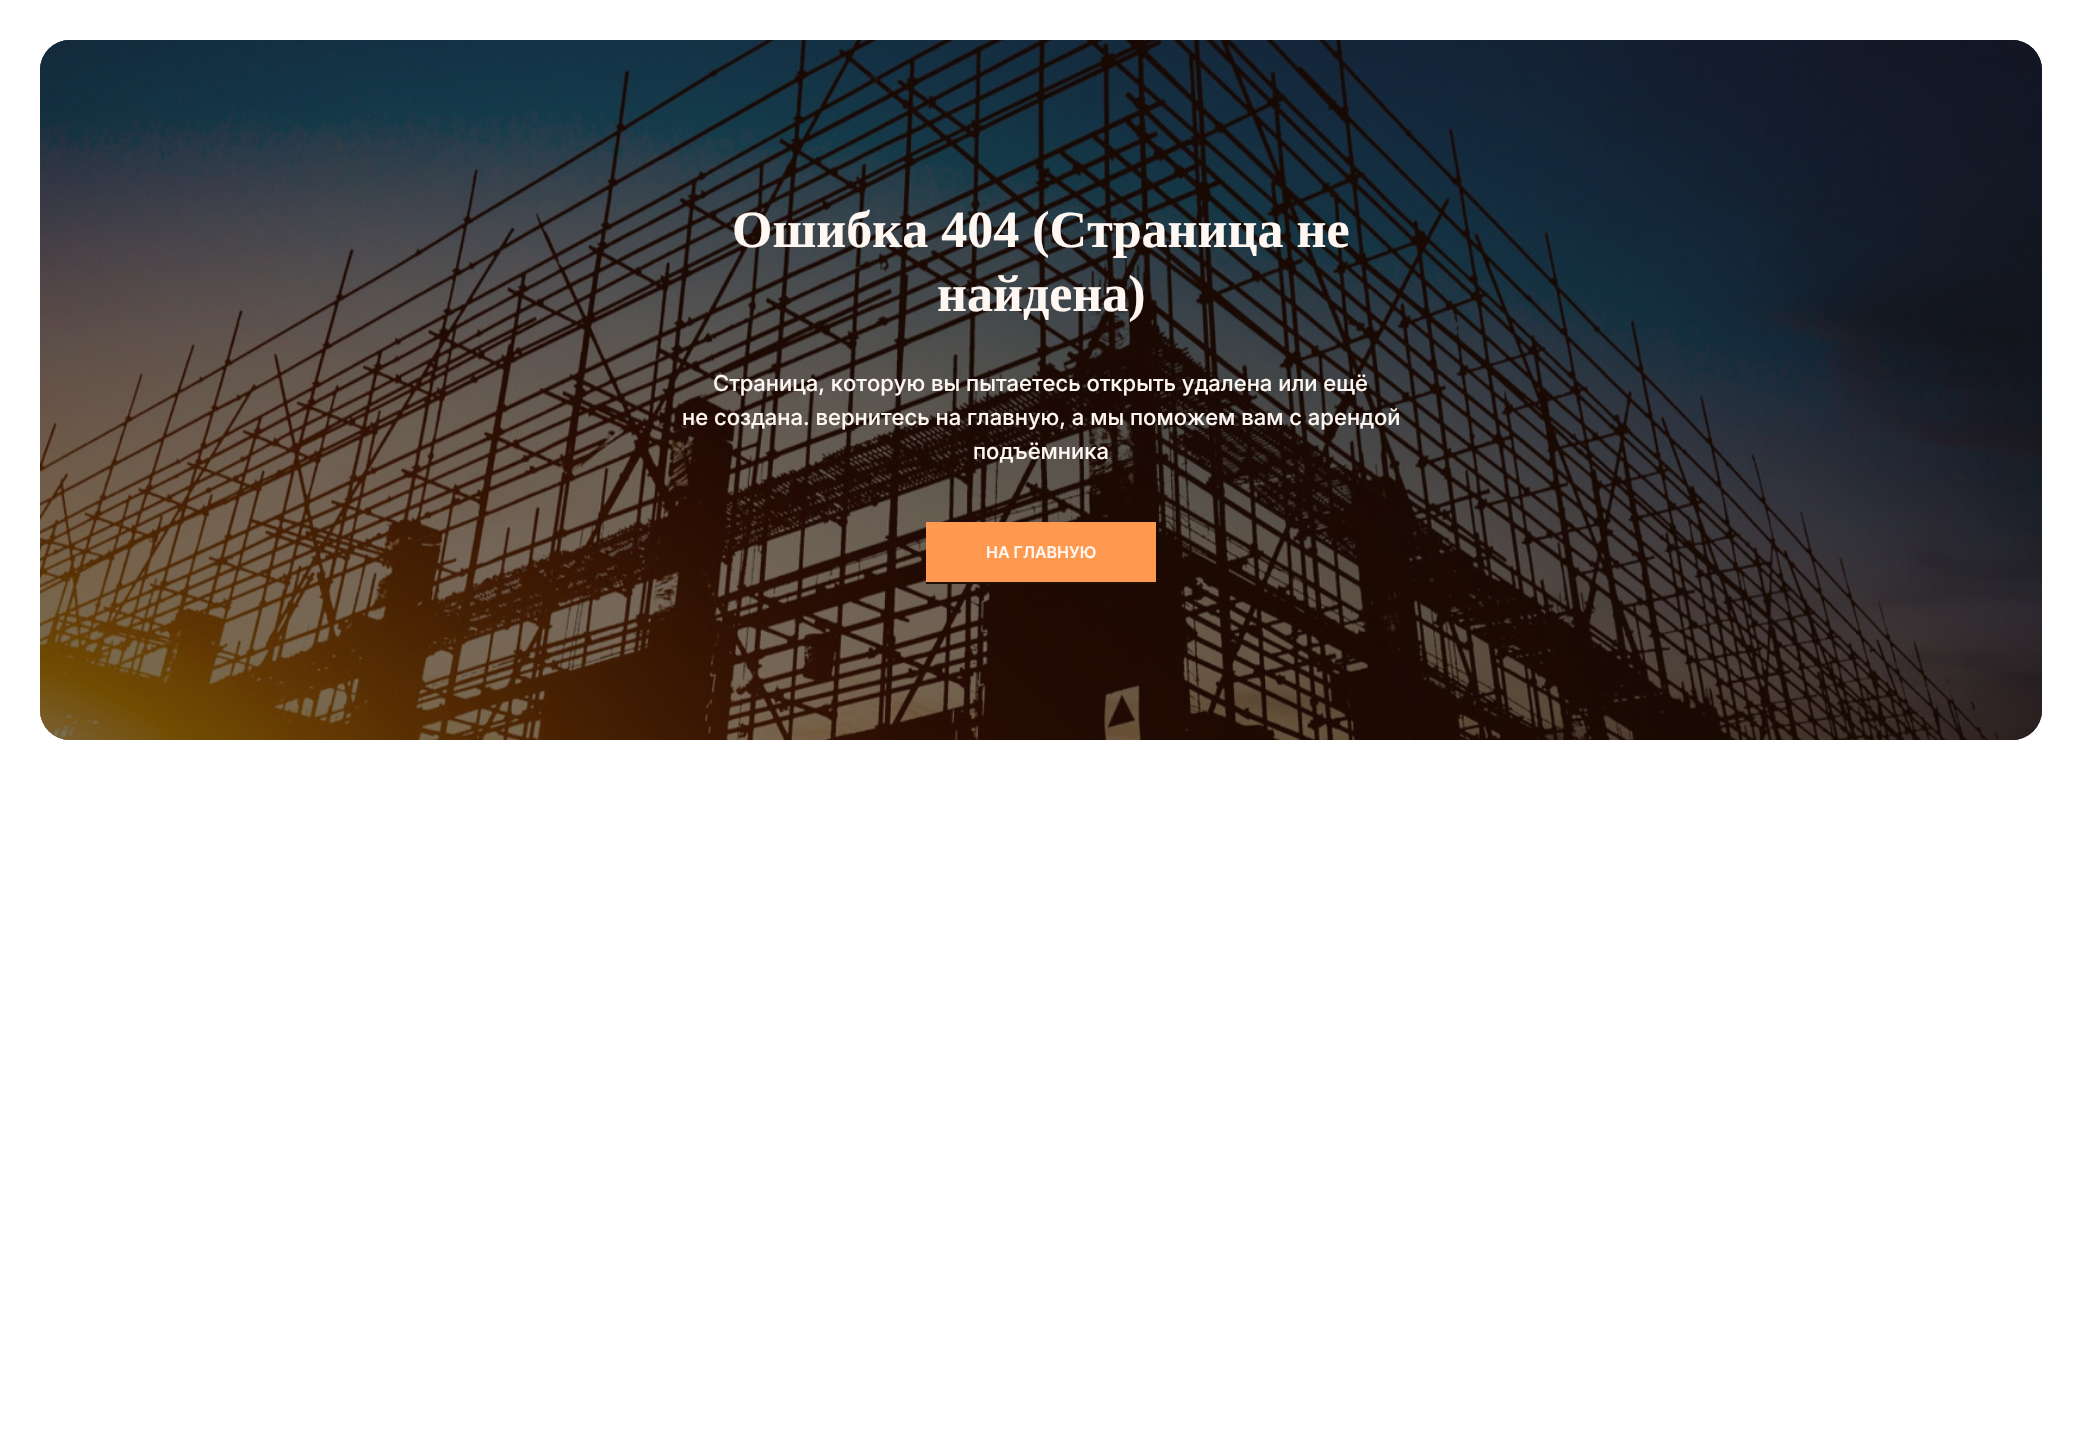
#include "include/core/SkBlurTypes.h"
#include "include/core/SkCanvas.h"
#include "include/core/SkData.h"
#include "include/core/SkFont.h"
#include "include/core/SkFontMgr.h"
#include "include/core/SkImage.h"
#include "include/core/SkMaskFilter.h"
#include "include/core/SkPaint.h"
#include "include/core/SkPathBuilder.h"
#include "include/core/SkTextBlob.h"
#include "include/effects/SkDashPathEffect.h"
#include "include/effects/SkGradientShader.h"
#include "include/utils/SkParsePath.h"

extern sk_sp<SkFontMgr> fontMgr;

void draw(SkCanvas* canvas) {
  SkPaint p;
  p.setAntiAlias(true);
  canvas->clear(SK_ColorWHITE);
  p.setColor(SK_ColorBLACK);
  canvas->drawRoundRect(SkRect::MakeLTRB(40, 40, 2042, 740), 30, 30, p);
  canvas->drawImageRect(SkImages::DeferredFromEncodedData(SkData::MakeFromFileName("images/1.png")), SkRect::MakeLTRB(40, 40, 2042, 740), SkSamplingOptions());
  p.setColor(SkColorSetARGB(153, 32, 14, 3));
  canvas->drawRoundRect(SkRect::MakeLTRB(40, 40, 2042, 740), 30, 30, p);
  p.setColor(SkColorSetRGB(32, 14, 3));
  canvas->drawRect(SkRect::MakeLTRB(926, 582, 1156, 584), p);
  p.setColor(SkColorSetRGB(255, 153, 80));
  canvas->drawRect(SkRect::MakeLTRB(926, 522, 1156, 582), p);
  SkFont font1(fontMgr->matchFamilyStyle("Liberation Serif", SkFontStyle::Bold()), 52);
  font1.setSubpixel(true);
  p.setColor(SkColorSetRGB(255, 247, 242));
  canvas->drawString("Ошибка 404 (Страница не", 732, 247, font1, p);
  canvas->drawString("найдена)", 937, 311, font1, p);
  SkFont font2(fontMgr->matchFamilyStyle("Inter", SkFontStyle(500, SkFontStyle::kNormal_Width, SkFontStyle::kUpright_Slant)), 22);
  font2.setSubpixel(true);
  canvas->drawString("Страница, которую вы пытаетесь открыть удалена или ещё", 713, 391, font2, p);
  canvas->drawString("не создана. вернитесь на главную, а мы поможем вам с арендой", 682, 425, font2, p);
  canvas->drawString("подъёмника", 973, 459, font2, p);
  SkFont font3(fontMgr->matchFamilyStyle("Inter", SkFontStyle(600, SkFontStyle::kNormal_Width, SkFontStyle::kUpright_Slant)), 16);
  font3.setSubpixel(true);
  canvas->drawString("НА ГЛАВНУЮ", 986, 558, font3, p);
}
